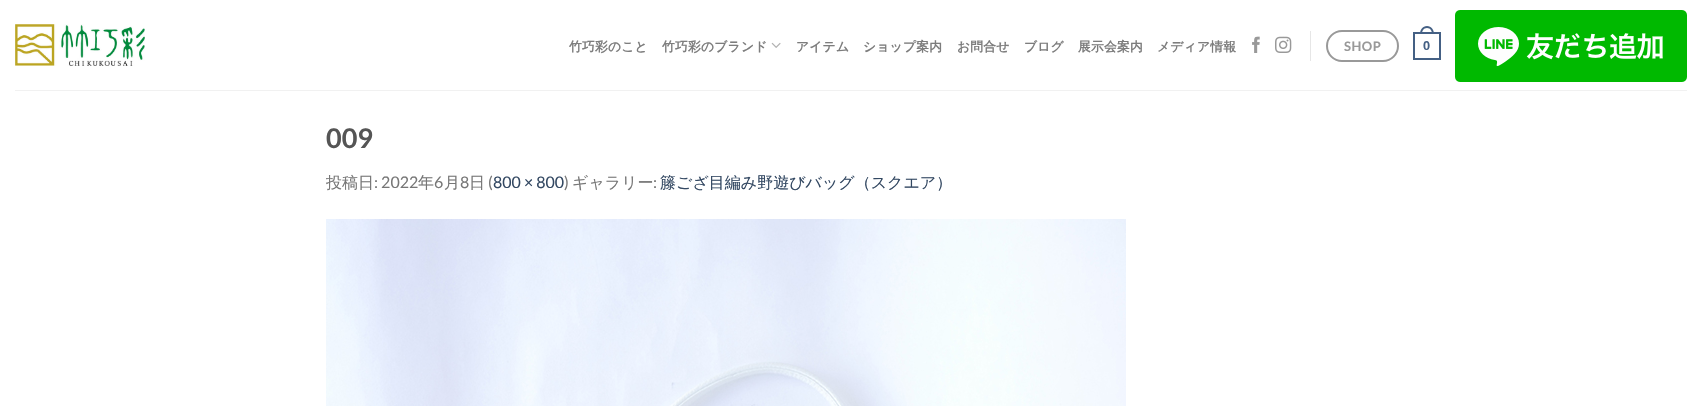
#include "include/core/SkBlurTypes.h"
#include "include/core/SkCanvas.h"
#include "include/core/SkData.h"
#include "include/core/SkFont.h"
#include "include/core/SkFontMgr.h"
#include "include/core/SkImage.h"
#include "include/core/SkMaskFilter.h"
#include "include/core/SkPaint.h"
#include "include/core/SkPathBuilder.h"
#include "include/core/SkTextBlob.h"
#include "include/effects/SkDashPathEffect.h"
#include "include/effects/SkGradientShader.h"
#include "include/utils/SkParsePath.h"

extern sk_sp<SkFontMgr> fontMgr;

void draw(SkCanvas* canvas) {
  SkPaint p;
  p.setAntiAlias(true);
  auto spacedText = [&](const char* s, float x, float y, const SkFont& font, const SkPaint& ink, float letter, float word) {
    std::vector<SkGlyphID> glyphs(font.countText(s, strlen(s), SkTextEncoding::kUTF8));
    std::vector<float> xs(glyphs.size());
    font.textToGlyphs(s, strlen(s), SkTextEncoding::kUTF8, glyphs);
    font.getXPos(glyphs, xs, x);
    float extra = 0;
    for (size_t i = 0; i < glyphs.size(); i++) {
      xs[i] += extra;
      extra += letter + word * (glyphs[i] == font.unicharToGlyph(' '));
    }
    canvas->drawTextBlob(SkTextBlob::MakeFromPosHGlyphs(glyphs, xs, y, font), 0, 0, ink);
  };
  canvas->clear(SK_ColorWHITE);
  canvas->drawImageRect(SkImages::DeferredFromEncodedData(SkData::MakeFromFileName("images/1.png")), SkRect::MakeLTRB(15, 24, 145, 66), SkSamplingOptions());
  canvas->drawImageRect(SkImages::DeferredFromEncodedData(SkData::MakeFromFileName("images/2.png")), SkRect::MakeLTRB(771, 42, 781, 48), SkSamplingOptions());
  canvas->drawImageRect(SkImages::DeferredFromEncodedData(SkData::MakeFromFileName("images/3.png")), SkRect::MakeLTRB(1252, 36, 1260, 53), SkSamplingOptions());
  canvas->drawImageRect(SkImages::DeferredFromEncodedData(SkData::MakeFromFileName("images/4.png")), SkRect::MakeLTRB(1275, 36, 1292, 53), SkSamplingOptions());
  p.setColor(SkColorSetRGB(230, 230, 230));
  canvas->drawRect(SkRect::MakeLTRB(1310, 31, 1311, 61), p);
  p.setStyle(SkPaint::kStroke_Style);
  p.setStrokeWidth(2);
  p.setColor(SkColorSetRGB(153, 153, 153));
  canvas->drawRoundRect(SkRect::MakeLTRB(1327, 31, 1398, 61), 15, 15, p);
  p.setColor(SkColorSetRGB(68, 96, 132));
  canvas->drawRect(SkRect::MakeLTRB(1414, 33, 1440, 59), p);
  p.setStyle(SkPaint::kFill_Style);
  canvas->drawPath(SkPathBuilder(SkPathFillType::kEvenOdd).moveTo(1427, 26).cubicTo(1431.5f, 26, 1434, 30, 1434, 34).lineTo(1420, 34).cubicTo(1420, 30, 1422.5f, 26, 1427, 26).close().moveTo(1427, 28).cubicTo(1430.5f, 28, 1432, 31, 1432, 34).lineTo(1422, 34).cubicTo(1422, 31, 1423.5f, 28, 1427, 28).close().detach(), p);
  canvas->drawImageRect(SkImages::DeferredFromEncodedData(SkData::MakeFromFileName("images/5.png")), SkRect::MakeLTRB(1455, 10, 1687, 82), SkSamplingOptions());
  p.setColor(SkColorSetRGB(241, 241, 241));
  canvas->drawRect(SkRect::MakeLTRB(15, 90, 1687, 91), p);
  canvas->drawImageRect(SkImages::DeferredFromEncodedData(SkData::MakeFromFileName("images/6.png")), SkRect::MakeLTRB(326, 219, 1126, 406), SkSamplingOptions());
  SkFont font1(fontMgr->matchFamilyStyle("WenQuanYi Zen Hei", SkFontStyle::Bold()), 12.75f);
  font1.setSubpixel(true);
  p.setColor(SkColorSetRGB(125, 125, 125));
  spacedText("竹巧彩のこと", 569, 51, font1, p, 0.25f, 0);
  spacedText("竹巧彩のブランド", 662, 51, font1, p, 0.25f, 0);
  spacedText("アイテム", 796, 51, font1, p, 0.25f, 0);
  spacedText("ショップ案内", 863, 51, font1, p, 0.25f, 0);
  spacedText("お問合せ", 957, 51, font1, p, 0.25f, 0);
  spacedText("ブログ", 1024, 51, font1, p, 0.25f, 0);
  spacedText("展示会案内", 1078, 51, font1, p, 0.25f, 0);
  spacedText("メディア情報", 1157, 51, font1, p, 0.25f, 0);
  SkFont font2(fontMgr->matchFamilyStyle("Lato", SkFontStyle::Bold()), 13);
  font2.setSubpixel(true);
  p.setColor(SkColorSetRGB(153, 153, 153));
  spacedText("SHOP", 1344, 51, font2, p, 0.5f, 0);
  SkFont font3(fontMgr->matchFamilyStyle("Liberation Sans", SkFontStyle::Bold()), 12.75f);
  font3.setSubpixel(true);
  p.setColor(SkColorSetRGB(68, 96, 132));
  spacedText("0", 1423, 50, font3, p, 0.25f, 0);
  SkFont font4(fontMgr->matchFamilyStyle("Lato", SkFontStyle::Bold()), 27);
  font4.setSubpixel(true);
  p.setColor(SkColorSetRGB(85, 85, 85));
  canvas->drawString("009", 326, 148, font4, p);
  SkFont font5(fontMgr->matchFamilyStyle("WenQuanYi Zen Hei", SkFontStyle(500, SkFontStyle::kNormal_Width, SkFontStyle::kUpright_Slant)), 16);
  font5.setSubpixel(true);
  p.setColor(SkColorSetRGB(119, 119, 119));
  canvas->drawString("投稿日", 326, 188, font5, p);
  SkFont font6(fontMgr->matchFamilyStyle("Lato", SkFontStyle::Normal()), 16);
  font6.setSubpixel(true);
  canvas->drawString(": 2022", 374, 188, font6, p);
  canvas->drawString("年", 418, 188, font5, p);
  canvas->drawString("6", 434, 188, font6, p);
  canvas->drawString("月", 444, 188, font5, p);
  canvas->drawString("8", 460, 188, font6, p);
  canvas->drawString("日", 469, 188, font5, p);
  canvas->drawString("(", 488, 188, font6, p);
  p.setColor(SkColorSetRGB(51, 72, 98));
  canvas->drawString("800 × 800", 493, 188, font6, p);
  p.setColor(SkColorSetRGB(119, 119, 119));
  canvas->drawString(")", 564, 188, font6, p);
  canvas->drawString("ギャラリー", 572, 188, font5, p);
  canvas->drawString(":", 653, 188, font6, p);
  p.setColor(SkColorSetRGB(51, 72, 98));
  canvas->drawString("籐ござ目編み野遊びバッグ（スクエア）", 660, 188, font5, p);
}
